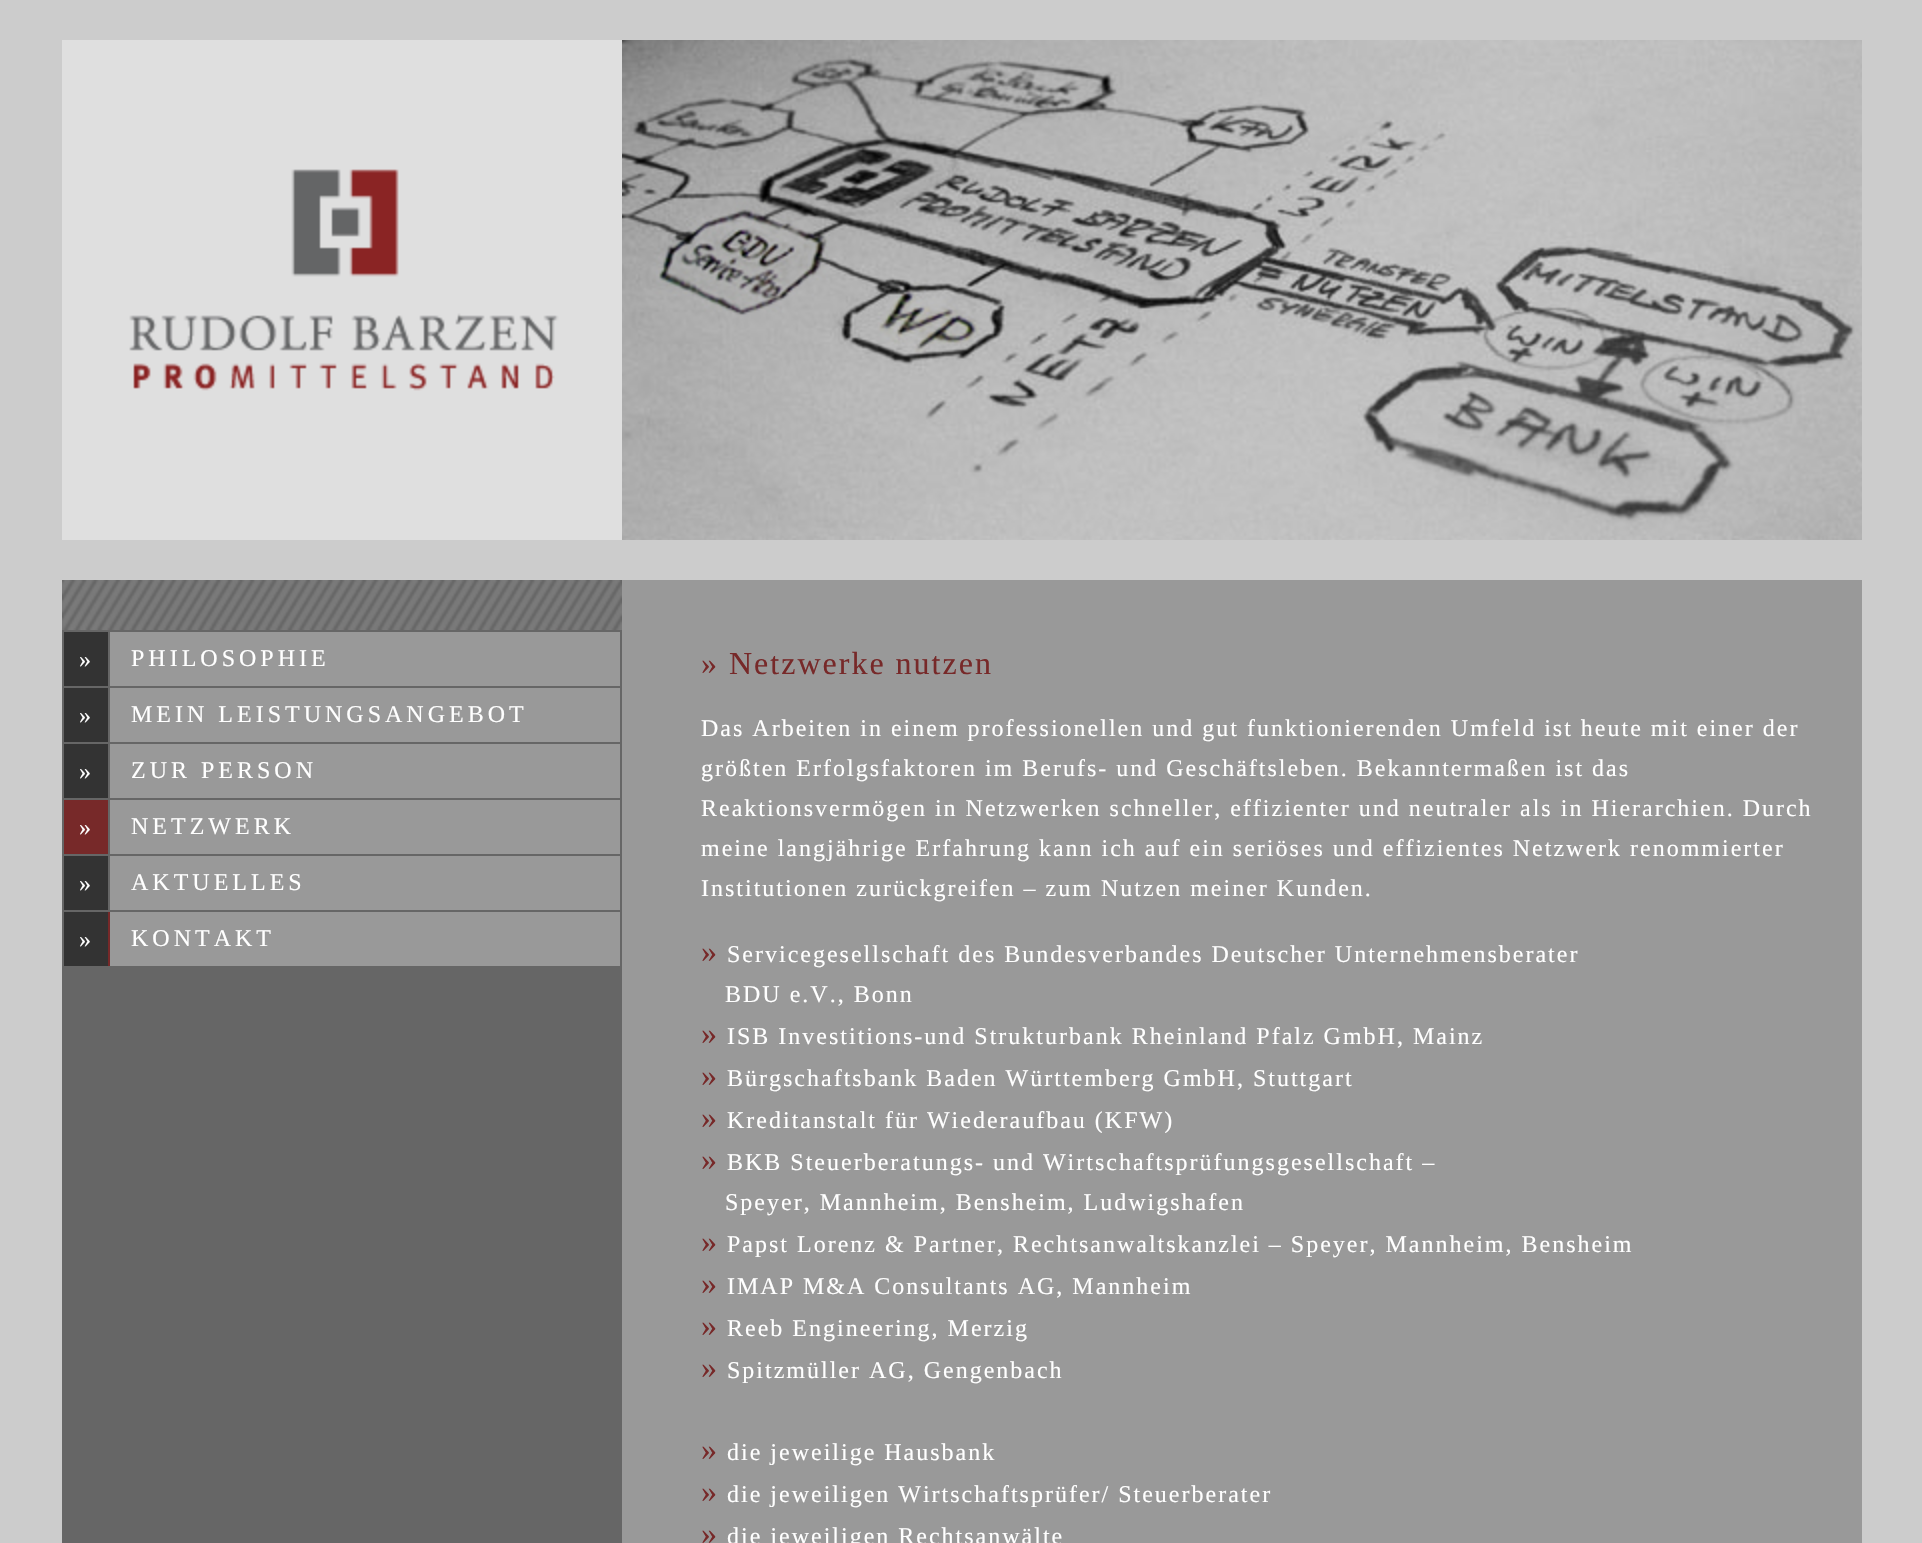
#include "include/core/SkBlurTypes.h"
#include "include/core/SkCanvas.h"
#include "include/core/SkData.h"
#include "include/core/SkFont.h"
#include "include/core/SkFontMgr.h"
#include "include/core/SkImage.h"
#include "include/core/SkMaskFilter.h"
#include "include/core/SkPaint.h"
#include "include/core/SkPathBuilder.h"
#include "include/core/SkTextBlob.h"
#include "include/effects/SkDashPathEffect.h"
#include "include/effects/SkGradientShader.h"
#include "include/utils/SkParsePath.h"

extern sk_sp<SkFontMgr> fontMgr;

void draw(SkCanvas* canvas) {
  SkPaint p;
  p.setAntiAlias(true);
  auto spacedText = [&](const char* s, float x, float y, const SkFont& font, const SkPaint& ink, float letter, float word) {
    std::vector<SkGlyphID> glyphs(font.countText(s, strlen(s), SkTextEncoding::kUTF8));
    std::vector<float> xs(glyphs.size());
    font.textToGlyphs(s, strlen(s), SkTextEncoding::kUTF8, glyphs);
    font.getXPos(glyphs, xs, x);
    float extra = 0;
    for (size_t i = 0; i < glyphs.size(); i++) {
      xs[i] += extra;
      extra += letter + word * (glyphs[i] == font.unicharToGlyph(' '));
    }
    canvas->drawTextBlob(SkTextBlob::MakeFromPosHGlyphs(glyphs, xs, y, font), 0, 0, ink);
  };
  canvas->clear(SkColorSetRGB(204, 204, 204));
  canvas->drawImageRect(SkImages::DeferredFromEncodedData(SkData::MakeFromFileName("images/1.png")), SkRect::MakeLTRB(62, 40, 622, 540), SkSamplingOptions());
  canvas->drawImageRect(SkImages::DeferredFromEncodedData(SkData::MakeFromFileName("images/2.png")), SkRect::MakeLTRB(622, 40, 1862, 540), SkSamplingOptions());
  p.setColor(SkColorSetRGB(153, 153, 153));
  canvas->drawRect(SkRect::MakeLTRB(622, 580, 1862, 1543), p);
  p.setColor(SkColorSetRGB(102, 102, 102));
  canvas->drawRect(SkRect::MakeLTRB(62, 630, 622, 1543), p);
  canvas->drawImageRect(SkImages::DeferredFromEncodedData(SkData::MakeFromFileName("images/3.png")), SkRect::MakeLTRB(62, 580, 622, 630), SkSamplingOptions());
  p.setColor(SkColorSetRGB(51, 51, 51));
  canvas->drawRect(SkRect::MakeLTRB(64, 632, 108, 686), p);
  p.setColor(SkColorSetRGB(153, 153, 153));
  canvas->drawRect(SkRect::MakeLTRB(110, 632, 620, 686), p);
  p.setColor(SkColorSetRGB(51, 51, 51));
  canvas->drawRect(SkRect::MakeLTRB(64, 688, 108, 742), p);
  p.setColor(SkColorSetRGB(153, 153, 153));
  canvas->drawRect(SkRect::MakeLTRB(110, 688, 620, 742), p);
  p.setColor(SkColorSetRGB(51, 51, 51));
  canvas->drawRect(SkRect::MakeLTRB(64, 744, 108, 798), p);
  p.setColor(SkColorSetRGB(153, 153, 153));
  canvas->drawRect(SkRect::MakeLTRB(110, 744, 620, 798), p);
  p.setColor(SkColorSetRGB(119, 41, 41));
  canvas->drawRect(SkRect::MakeLTRB(64, 800, 108, 854), p);
  p.setColor(SkColorSetRGB(153, 153, 153));
  canvas->drawRect(SkRect::MakeLTRB(110, 800, 620, 854), p);
  p.setColor(SkColorSetRGB(51, 51, 51));
  canvas->drawRect(SkRect::MakeLTRB(64, 856, 108, 910), p);
  p.setColor(SkColorSetRGB(153, 153, 153));
  canvas->drawRect(SkRect::MakeLTRB(110, 856, 620, 910), p);
  p.setColor(SkColorSetRGB(119, 41, 41));
  canvas->drawRect(SkRect::MakeLTRB(108, 912, 110, 966), p);
  p.setColor(SkColorSetRGB(51, 51, 51));
  canvas->drawRect(SkRect::MakeLTRB(64, 912, 108, 966), p);
  p.setColor(SkColorSetRGB(153, 153, 153));
  canvas->drawRect(SkRect::MakeLTRB(110, 912, 620, 966), p);
  SkFont font1(fontMgr->matchFamilyStyle("Liberation Serif", SkFontStyle::Normal()), 24);
  font1.setSubpixel(true);
  p.setColor(SK_ColorWHITE);
  canvas->drawString("»", 79, 667, font1, p);
  spacedText("PHILOSOPHIE", 131, 666, font1, p, 4, 0);
  canvas->drawString("»", 79, 723, font1, p);
  spacedText("MEIN LEISTUNGSANGEBOT", 131, 722, font1, p, 4, 0);
  canvas->drawString("»", 79, 779, font1, p);
  spacedText("ZUR PERSON", 131, 778, font1, p, 4, 0);
  canvas->drawString("»", 79, 835, font1, p);
  spacedText("NETZWERK", 131, 834, font1, p, 4, 0);
  canvas->drawString("»", 79, 891, font1, p);
  spacedText("AKTUELLES", 131, 890, font1, p, 4, 0);
  canvas->drawString("»", 79, 947, font1, p);
  spacedText("KONTAKT", 131, 946, font1, p, 4, 0);
  SkFont font2(fontMgr->matchFamilyStyle("Liberation Serif", SkFontStyle::Normal()), 32);
  font2.setSubpixel(true);
  p.setColor(SkColorSetRGB(119, 41, 41));
  spacedText("» Netzwerke nutzen", 701, 674, font2, p, 2, 0);
  p.setColor(SK_ColorWHITE);
  spacedText("Das Arbeiten in einem professionellen und gut funktionierenden Umfeld ist heute mit einer der", 701, 736, font1, p, 2, 0);
  spacedText("größten Erfolgsfaktoren im Berufs- und Geschäftsleben. Bekanntermaßen ist das", 701, 776, font1, p, 2, 0);
  spacedText("Reaktionsvermögen in Netzwerken schneller, effizienter und neutraler als in Hierarchien. Durch", 701, 816, font1, p, 2, 0);
  spacedText("meine langjährige Erfahrung kann ich auf ein seriöses und effizientes Netzwerk renommierter", 701, 856, font1, p, 2, 0);
  spacedText("Institutionen zurückgreifen – zum Nutzen meiner Kunden.", 701, 896, font1, p, 2, 0);
  p.setColor(SkColorSetRGB(119, 41, 41));
  spacedText("»", 701, 962, font2, p, 2, 0);
  p.setColor(SK_ColorWHITE);
  spacedText("Servicegesellschaft des Bundesverbandes Deutscher Unternehmensberater", 727, 962, font1, p, 2, 0);
  spacedText("BDU e.V., Bonn", 725, 1002, font1, p, 2, 0);
  p.setColor(SkColorSetRGB(119, 41, 41));
  spacedText("»", 701, 1044, font2, p, 2, 0);
  p.setColor(SK_ColorWHITE);
  spacedText("ISB Investitions-und Strukturbank Rheinland Pfalz GmbH, Mainz", 727, 1044, font1, p, 2, 0);
  p.setColor(SkColorSetRGB(119, 41, 41));
  spacedText("»", 701, 1086, font2, p, 2, 0);
  p.setColor(SK_ColorWHITE);
  spacedText("Bürgschaftsbank Baden Württemberg GmbH, Stuttgart", 727, 1086, font1, p, 2, 0);
  p.setColor(SkColorSetRGB(119, 41, 41));
  spacedText("»", 701, 1128, font2, p, 2, 0);
  p.setColor(SK_ColorWHITE);
  spacedText("Kreditanstalt für Wiederaufbau (KFW)", 727, 1128, font1, p, 2, 0);
  p.setColor(SkColorSetRGB(119, 41, 41));
  spacedText("»", 701, 1170, font2, p, 2, 0);
  p.setColor(SK_ColorWHITE);
  spacedText("BKB Steuerberatungs- und Wirtschaftsprüfungsgesellschaft –", 727, 1170, font1, p, 2, 0);
  spacedText("Speyer, Mannheim, Bensheim, Ludwigshafen", 725, 1210, font1, p, 2, 0);
  p.setColor(SkColorSetRGB(119, 41, 41));
  spacedText("»", 701, 1252, font2, p, 2, 0);
  p.setColor(SK_ColorWHITE);
  spacedText("Papst Lorenz & Partner, Rechtsanwaltskanzlei – Speyer, Mannheim, Bensheim", 727, 1252, font1, p, 2, 0);
  p.setColor(SkColorSetRGB(119, 41, 41));
  spacedText("»", 701, 1294, font2, p, 2, 0);
  p.setColor(SK_ColorWHITE);
  spacedText("IMAP M&A Consultants AG, Mannheim", 727, 1294, font1, p, 2, 0);
  p.setColor(SkColorSetRGB(119, 41, 41));
  spacedText("»", 701, 1336, font2, p, 2, 0);
  p.setColor(SK_ColorWHITE);
  spacedText("Reeb Engineering, Merzig", 727, 1336, font1, p, 2, 0);
  p.setColor(SkColorSetRGB(119, 41, 41));
  spacedText("»", 701, 1378, font2, p, 2, 0);
  p.setColor(SK_ColorWHITE);
  spacedText("Spitzmüller AG, Gengenbach", 727, 1378, font1, p, 2, 0);
  p.setColor(SkColorSetRGB(119, 41, 41));
  spacedText("»", 701, 1460, font2, p, 2, 0);
  p.setColor(SK_ColorWHITE);
  spacedText("die jeweilige Hausbank", 727, 1460, font1, p, 2, 0);
  p.setColor(SkColorSetRGB(119, 41, 41));
  spacedText("»", 701, 1502, font2, p, 2, 0);
  p.setColor(SK_ColorWHITE);
  spacedText("die jeweiligen Wirtschaftsprüfer/ Steuerberater", 727, 1502, font1, p, 2, 0);
  p.setColor(SkColorSetRGB(119, 41, 41));
  spacedText("»", 701, 1544, font2, p, 2, 0);
  p.setColor(SK_ColorWHITE);
  spacedText("die jeweiligen Rechtsanwälte", 727, 1544, font1, p, 2, 0);
}
